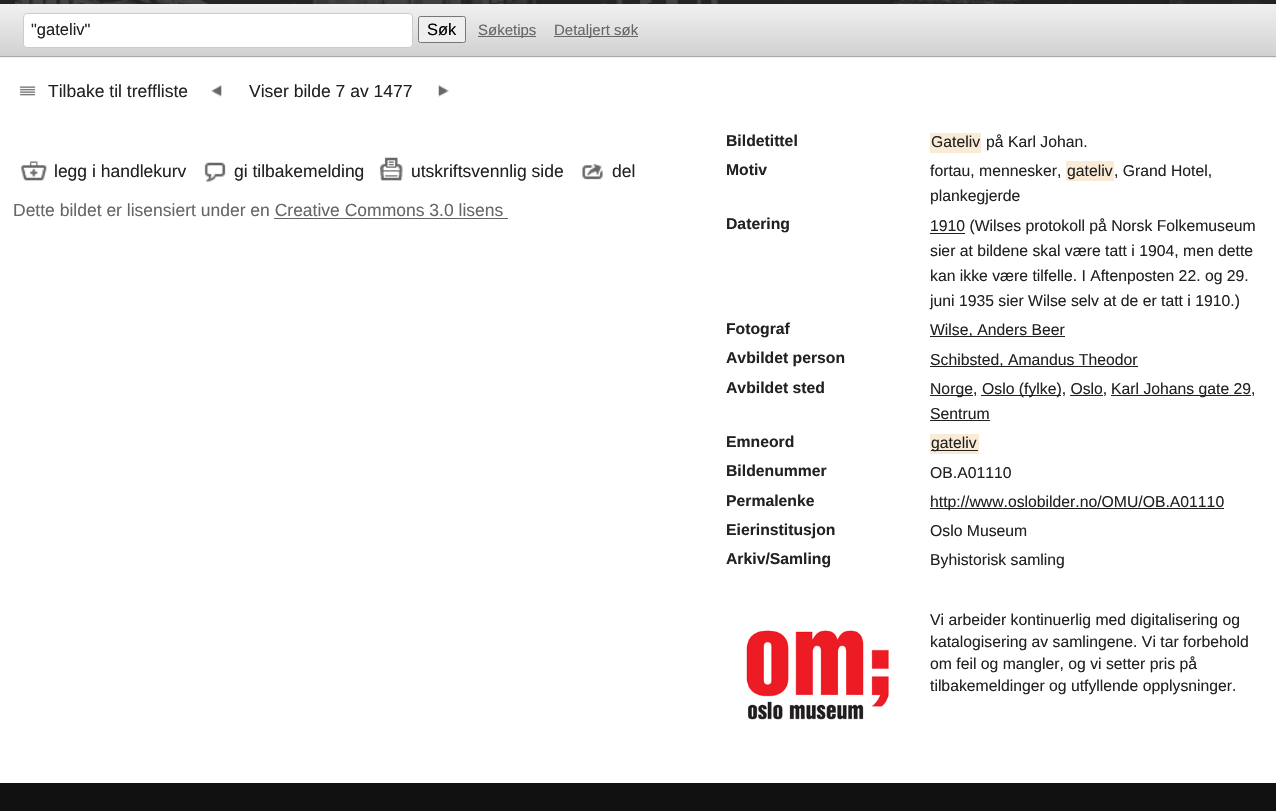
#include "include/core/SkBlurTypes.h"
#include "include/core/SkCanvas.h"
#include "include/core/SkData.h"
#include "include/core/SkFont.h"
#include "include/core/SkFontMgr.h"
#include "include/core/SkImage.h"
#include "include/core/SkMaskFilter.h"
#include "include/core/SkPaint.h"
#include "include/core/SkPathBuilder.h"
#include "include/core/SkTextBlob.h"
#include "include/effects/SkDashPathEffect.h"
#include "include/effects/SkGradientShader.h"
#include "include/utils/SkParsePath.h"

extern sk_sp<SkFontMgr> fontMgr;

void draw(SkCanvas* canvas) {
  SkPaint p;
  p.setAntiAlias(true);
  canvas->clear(SK_ColorWHITE);
  p.setColor(SkColorSetRGB(34, 34, 34));
  canvas->drawRect(SkRect::MakeLTRB(0, 0, 1276, 4), p);
  canvas->drawImageRect(SkImages::DeferredFromEncodedData(SkData::MakeFromFileName("images/1.png")), SkRect::MakeLTRB(15, 0, 1263, 4), SkSamplingOptions());
  {
    const SkColor colors[] = {SkColorSetRGB(241, 241, 241), SkColorSetRGB(209, 209, 209)};
    const float stops[] = {0, 1};
    const SkPoint ends[] = {{638, 3.7f}, {638, 56}};
    p.setShader(SkGradientShader::MakeLinear(ends, colors, stops, 2, SkTileMode::kClamp));
    p.setAlpha(255);
  }
  canvas->drawRect(SkRect::MakeLTRB(0, 4, 1276, 56), p);
  {
    const SkColor colors[] = {SkColorSetRGB(241, 241, 241), SkColorSetRGB(209, 209, 209)};
    const float stops[] = {0, 1};
    const SkPoint ends[] = {{638, 56}, {638, 109}};
    p.setShader(SkGradientShader::MakeLinear(ends, colors, stops, 2, SkTileMode::kClamp));
    p.setAlpha(255);
  }
  canvas->drawRect(SkRect::MakeLTRB(0, 57, 1276, 58), p);
  p.setShader(nullptr);
  p.setColor(SkColorSetRGB(170, 170, 170));
  canvas->drawRect(SkRect::MakeLTRB(0, 56, 1276, 57), p);
  p.setColor(SK_ColorWHITE);
  canvas->drawRoundRect(SkRect::MakeLTRB(23.5f, 13.5f, 412.5f, 47.5f), 3.5f, 3.5f, p);
  p.setStyle(SkPaint::kStroke_Style);
  p.setStrokeWidth(1);
  p.setColor(SkColorSetRGB(204, 204, 204));
  canvas->drawRoundRect(SkRect::MakeLTRB(23.5f, 13.5f, 412.5f, 47.5f), 3.5f, 3.5f, p);
  p.setStyle(SkPaint::kFill_Style);
  p.setColor(SkColorSetRGB(239, 239, 239));
  canvas->drawRoundRect(SkRect::MakeLTRB(418.5f, 16.5f, 465.5f, 42.5f), 2, 2, p);
  p.setStyle(SkPaint::kStroke_Style);
  p.setColor(SkColorSetRGB(118, 118, 118));
  canvas->drawRoundRect(SkRect::MakeLTRB(418.5f, 16.5f, 465.5f, 42.5f), 2, 2, p);
  p.setStyle(SkPaint::kFill_Style);
  p.setColor(SkColorSetRGB(102, 102, 102));
  canvas->drawRect(SkRect::MakeLTRB(478, 36, 536, 37), p);
  canvas->drawRect(SkRect::MakeLTRB(554, 36, 638, 37), p);
  canvas->drawImageRect(SkImages::DeferredFromEncodedData(SkData::MakeFromFileName("images/2.png")), SkRect::MakeLTRB(19, 86, 36, 96), SkSamplingOptions());
  canvas->drawImageRect(SkImages::DeferredFromEncodedData(SkData::MakeFromFileName("images/3.png")), SkRect::MakeLTRB(211, 85, 222, 97), SkSamplingOptions());
  canvas->drawImageRect(SkImages::DeferredFromEncodedData(SkData::MakeFromFileName("images/4.png")), SkRect::MakeLTRB(438, 85, 449, 97), SkSamplingOptions());
  canvas->drawImageRect(SkImages::DeferredFromEncodedData(SkData::MakeFromFileName("images/5.png")), SkRect::MakeLTRB(21, 161, 47, 181), SkSamplingOptions());
  canvas->drawImageRect(SkImages::DeferredFromEncodedData(SkData::MakeFromFileName("images/6.png")), SkRect::MakeLTRB(204, 162, 226, 182), SkSamplingOptions());
  canvas->drawImageRect(SkImages::DeferredFromEncodedData(SkData::MakeFromFileName("images/7.png")), SkRect::MakeLTRB(379, 157, 403, 181), SkSamplingOptions());
  canvas->drawImageRect(SkImages::DeferredFromEncodedData(SkData::MakeFromFileName("images/8.png")), SkRect::MakeLTRB(582, 163, 603, 180), SkSamplingOptions());
  canvas->drawRect(SkRect::MakeLTRB(274, 218, 508, 219), p);
  p.setColor(SkColorSetRGB(250, 235, 215));
  canvas->drawRect(SkRect::MakeLTRB(930, 133, 981, 153), p);
  canvas->drawRect(SkRect::MakeLTRB(1066, 161, 1114, 181), p);
  p.setColor(SkColorSetRGB(34, 34, 34));
  canvas->drawRect(SkRect::MakeLTRB(930, 233, 965, 234), p);
  canvas->drawRect(SkRect::MakeLTRB(930, 336, 1065, 337), p);
  canvas->drawRect(SkRect::MakeLTRB(930, 366, 1138, 367), p);
  canvas->drawRect(SkRect::MakeLTRB(930, 395, 973, 396), p);
  canvas->drawRect(SkRect::MakeLTRB(981, 395, 1061, 396), p);
  canvas->drawRect(SkRect::MakeLTRB(1111, 395, 1251, 396), p);
  canvas->drawRect(SkRect::MakeLTRB(1070, 395, 1103, 396), p);
  canvas->drawRect(SkRect::MakeLTRB(930, 420, 990, 421), p);
  p.setColor(SkColorSetRGB(250, 235, 215));
  canvas->drawRect(SkRect::MakeLTRB(930, 434, 979, 454), p);
  p.setColor(SkColorSetRGB(34, 34, 34));
  canvas->drawRect(SkRect::MakeLTRB(931, 450, 978, 451), p);
  canvas->drawRect(SkRect::MakeLTRB(930, 508, 1224, 509), p);
  canvas->drawImageRect(SkImages::DeferredFromEncodedData(SkData::MakeFromFileName("images/9.png")), SkRect::MakeLTRB(746, 630, 889, 720), SkSamplingOptions());
  p.setColor(SkColorSetRGB(17, 17, 17));
  canvas->drawRect(SkRect::MakeLTRB(0, 783, 1276, 811), p);
  SkFont font1(fontMgr->matchFamilyStyle("Liberation Sans", SkFontStyle::Normal()), 16.5f);
  font1.setSubpixel(true);
  p.setColor(SkColorSetRGB(34, 34, 34));
  canvas->drawString("\"gateliv\"", 31, 35, font1, p);
  p.setColor(SK_ColorBLACK);
  canvas->drawString("Søk", 427, 35, font1, p);
  SkFont font2(fontMgr->matchFamilyStyle("Liberation Sans", SkFontStyle::Normal()), 15);
  font2.setSubpixel(true);
  p.setColor(SkColorSetRGB(102, 102, 102));
  canvas->drawString("Søketips", 478, 35, font2, p);
  canvas->drawString("Detaljert søk", 554, 35, font2, p);
  SkFont font3(fontMgr->matchFamilyStyle("Liberation Sans", SkFontStyle::Normal()), 17.5f);
  font3.setSubpixel(true);
  p.setColor(SkColorSetRGB(34, 34, 34));
  canvas->drawString("Tilbake til treffliste", 48, 97, font3, p);
  canvas->drawString("Viser bilde 7 av 1477", 249, 97, font3, p);
  canvas->drawString("legg i handlekurv", 54, 177, font3, p);
  canvas->drawString("gi tilbakemelding", 234, 177, font3, p);
  canvas->drawString("utskriftsvennlig side", 411, 177, font3, p);
  canvas->drawString("del", 612, 177, font3, p);
  p.setColor(SkColorSetRGB(102, 102, 102));
  canvas->drawString("Dette bildet er lisensiert under en Creative Commons 3.0 lisens", 13, 216, font3, p);
  SkFont font4(fontMgr->matchFamilyStyle("Liberation Sans", SkFontStyle::Bold()), 15.75f);
  font4.setSubpixel(true);
  p.setColor(SkColorSetRGB(34, 34, 34));
  canvas->drawString("Bildetittel", 726, 146, font4, p);
  SkFont font5(fontMgr->matchFamilyStyle("Liberation Sans", SkFontStyle::Normal()), 15.75f);
  font5.setSubpixel(true);
  canvas->drawString("Gateliv", 931, 147, font5, p);
  canvas->drawString("på Karl Johan.", 986, 147, font5, p);
  canvas->drawString("Motiv", 726, 175, font4, p);
  canvas->drawString("fortau, mennesker,", 930, 176, font5, p);
  canvas->drawString("gateliv", 1067, 176, font5, p);
  canvas->drawString(", Grand Hotel,", 1114, 176, font5, p);
  canvas->drawString("plankegjerde", 930, 201, font5, p);
  canvas->drawString("Datering", 726, 229, font4, p);
  canvas->drawString("1910 (Wilses protokoll på Norsk Folkemuseum", 930, 231, font5, p);
  canvas->drawString("sier at bildene skal være tatt i 1904, men dette", 930, 256, font5, p);
  canvas->drawString("kan ikke være tilfelle. I Aftenposten 22. og 29.", 930, 281, font5, p);
  canvas->drawString("juni 1935 sier Wilse selv at de er tatt i 1910.)", 930, 306, font5, p);
  canvas->drawString("Fotograf", 726, 334, font4, p);
  canvas->drawString("Wilse, Anders Beer", 930, 335, font5, p);
  canvas->drawString("Avbildet person", 726, 363, font4, p);
  canvas->drawString("Schibsted, Amandus Theodor", 930, 365, font5, p);
  canvas->drawString("Avbildet sted", 726, 393, font4, p);
  canvas->drawString("Norge,", 930, 394, font5, p);
  canvas->drawString("Oslo (fylke), Oslo,", 982, 394, font5, p);
  canvas->drawString("Karl Johans gate 29,", 1111, 394, font5, p);
  canvas->drawString("Sentrum", 930, 419, font5, p);
  canvas->drawString("Emneord", 726, 447, font4, p);
  canvas->drawString("gateliv", 931, 448, font5, p);
  canvas->drawString("Bildenummer", 726, 476, font4, p);
  canvas->drawString("OB.A01110", 930, 478, font5, p);
  canvas->drawString("Permalenke", 726, 506, font4, p);
  canvas->drawString("http://www.oslobilder.no/OMU/OB.A01110", 930, 507, font5, p);
  canvas->drawString("Eierinstitusjon", 726, 535, font4, p);
  canvas->drawString("Oslo Museum", 930, 536, font5, p);
  canvas->drawString("Arkiv/Samling", 726, 564, font4, p);
  canvas->drawString("Byhistorisk samling", 930, 565, font5, p);
  canvas->drawString("Vi arbeider kontinuerlig med digitalisering og", 930, 625, font5, p);
  canvas->drawString("katalogisering av samlingene. Vi tar forbehold", 930, 647, font5, p);
  canvas->drawString("om feil og mangler, og vi setter pris på", 930, 669, font5, p);
  canvas->drawString("tilbakemeldinger og utfyllende opplysninger.", 930, 691, font5, p);
}
